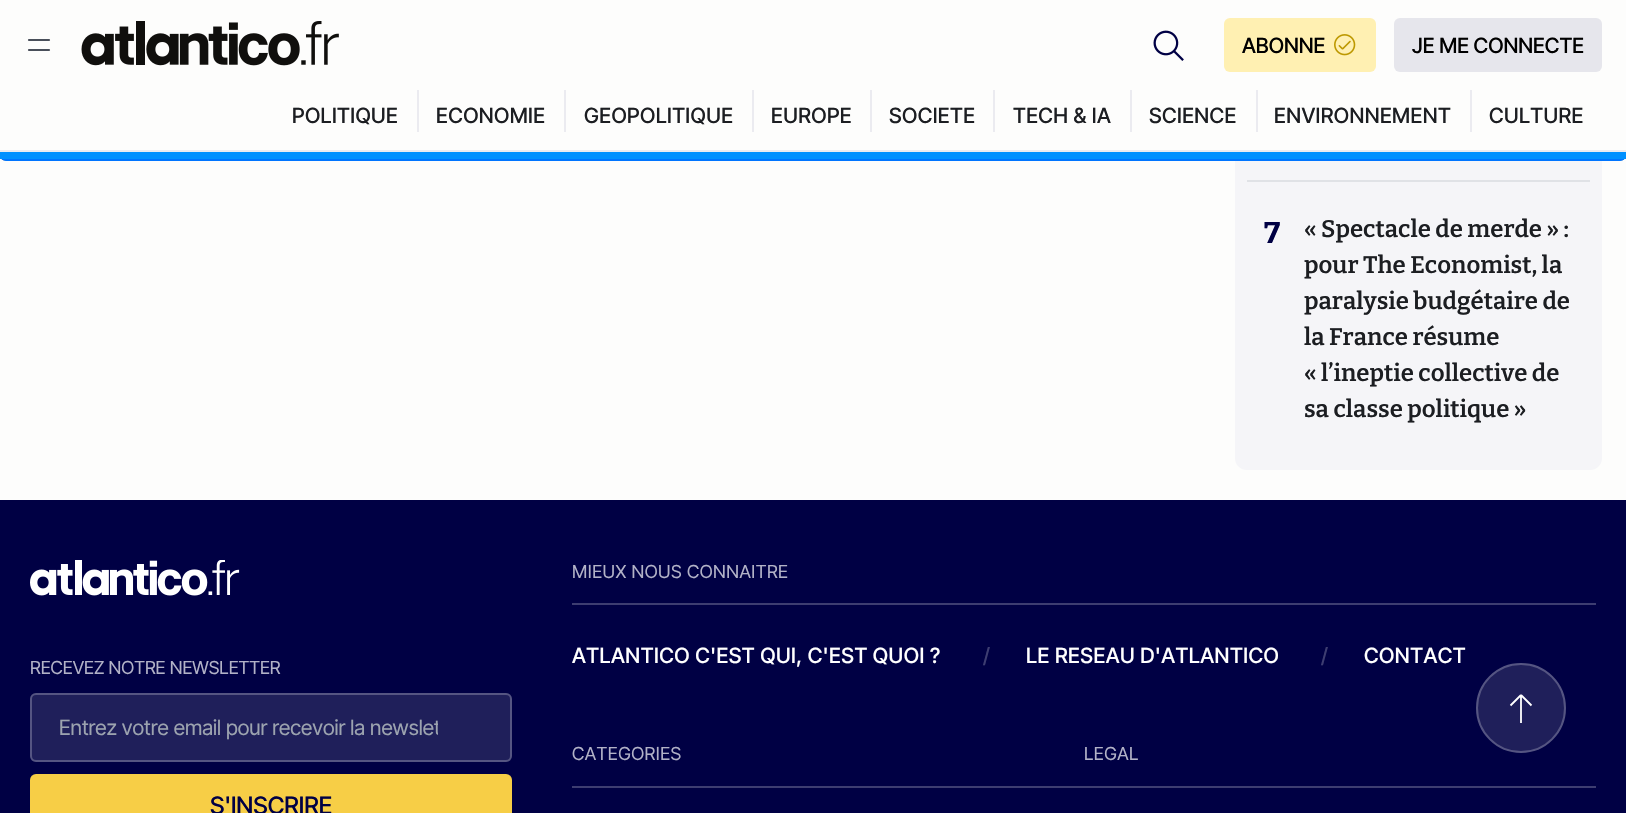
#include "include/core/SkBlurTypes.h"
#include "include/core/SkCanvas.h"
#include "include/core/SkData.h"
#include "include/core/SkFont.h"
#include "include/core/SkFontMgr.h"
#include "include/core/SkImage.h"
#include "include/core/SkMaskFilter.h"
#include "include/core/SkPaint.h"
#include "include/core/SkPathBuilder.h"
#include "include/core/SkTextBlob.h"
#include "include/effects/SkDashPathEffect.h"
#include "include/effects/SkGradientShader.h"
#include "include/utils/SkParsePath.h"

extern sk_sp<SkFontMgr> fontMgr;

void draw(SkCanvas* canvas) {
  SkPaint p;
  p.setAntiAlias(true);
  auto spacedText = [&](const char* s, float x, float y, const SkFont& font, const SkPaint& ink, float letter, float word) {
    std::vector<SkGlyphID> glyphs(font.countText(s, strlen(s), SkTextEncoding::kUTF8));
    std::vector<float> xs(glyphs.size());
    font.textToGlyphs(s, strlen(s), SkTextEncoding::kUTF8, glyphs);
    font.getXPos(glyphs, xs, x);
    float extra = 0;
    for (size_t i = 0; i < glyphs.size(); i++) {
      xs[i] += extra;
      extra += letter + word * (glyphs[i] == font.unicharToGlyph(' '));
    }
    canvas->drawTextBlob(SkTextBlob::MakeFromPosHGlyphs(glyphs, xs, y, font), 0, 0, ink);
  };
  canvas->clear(SkColorSetRGB(253, 253, 252));
  p.setColor(SkColorSetRGB(245, 245, 248));
  canvas->drawRoundRect(SkRect::MakeLTRB(1235, -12, 1602, 470), 12, 12, p);
  p.setStyle(SkPaint::kStroke_Style);
  p.setStrokeWidth(2);
  p.setColor(SkColorSetRGB(178, 178, 178));
  canvas->drawRoundRect(SkRect::MakeLTRB(1, 150, 1625, 160), 5, 5, p);
  p.setStyle(SkPaint::kFill_Style);
  p.setColor(SkColorSetRGB(0, 117, 255));
  canvas->drawRoundRect(SkRect::MakeLTRB(0, 149, 1626, 161), 6, 6, p);
  p.setColor(SkColorSetRGB(253, 253, 252));
  canvas->drawRect(SkRect::MakeLTRB(2, 0, 1624, 150), p);
  p.setColor(SkColorSetRGB(235, 235, 240));
  canvas->drawRect(SkRect::MakeLTRB(0, 150, 1626, 152), p);
  p.setStyle(SkPaint::kStroke_Style);
  p.setStrokeWidth(2.2f);
  p.setStrokeCap(SkPaint::kRound_Cap);
  p.setStrokeJoin(SkPaint::kRound_Join);
  p.setColor(SkColorSetRGB(73, 79, 90));
  canvas->drawPath(SkPathBuilder().moveTo(29, 40).lineTo(49, 40).moveTo(29, 50).lineTo(49, 50).detach(), p);
  canvas->drawImageRect(SkImages::DeferredFromEncodedData(SkData::MakeFromFileName("images/1.png")), SkRect::MakeLTRB(81, 21, 339, 66), SkSamplingOptions());
  canvas->drawImageRect(SkImages::DeferredFromEncodedData(SkData::MakeFromFileName("images/2.png")), SkRect::MakeLTRB(1153, 30, 1184, 61), SkSamplingOptions());
  p.setStyle(SkPaint::kFill_Style);
  p.setColor(SkColorSetRGB(255, 240, 178));
  canvas->drawRoundRect(SkRect::MakeLTRB(1224, 18, 1376, 72), 6, 6, p);
  canvas->drawImageRect(SkImages::DeferredFromEncodedData(SkData::MakeFromFileName("images/3.png")), SkRect::MakeLTRB(1334, 34, 1356, 56), SkSamplingOptions());
  p.setColor(SkColorSetRGB(230, 230, 236));
  canvas->drawRoundRect(SkRect::MakeLTRB(1394, 18, 1602, 72), 6, 6, p);
  p.setColor(SkColorSetRGB(235, 235, 240));
  canvas->drawRect(SkRect::MakeLTRB(417, 90, 419, 132), p);
  canvas->drawRect(SkRect::MakeLTRB(564, 90, 566, 132), p);
  canvas->drawRect(SkRect::MakeLTRB(752, 90, 754, 132), p);
  canvas->drawRect(SkRect::MakeLTRB(870, 90, 872, 132), p);
  canvas->drawRect(SkRect::MakeLTRB(993, 90, 995, 132), p);
  canvas->drawRect(SkRect::MakeLTRB(1130, 90, 1132, 132), p);
  canvas->drawRect(SkRect::MakeLTRB(1256, 90, 1258, 132), p);
  canvas->drawRect(SkRect::MakeLTRB(1470, 90, 1472, 132), p);
  p.setColor(SkColorSetRGB(0, 144, 255));
  canvas->drawRect(SkRect::MakeLTRB(0, 152, 1626, 159), p);
  p.setColor(SkColorSetRGB(224, 226, 230));
  canvas->drawRect(SkRect::MakeLTRB(1247, 180, 1590, 182), p);
  p.setColor(SkColorSetRGB(0, 0, 68));
  canvas->drawRect(SkRect::MakeLTRB(0, 500, 1626, 813), p);
  canvas->drawImageRect(SkImages::DeferredFromEncodedData(SkData::MakeFromFileName("images/4.png")), SkRect::MakeLTRB(30, 560, 240, 596), SkSamplingOptions());
  p.setColor(SkColorSetRGB(31, 31, 90));
  canvas->drawRoundRect(SkRect::MakeLTRB(30, 693, 512, 762), 6, 6, p);
  p.setStyle(SkPaint::kStroke_Style);
  p.setStrokeWidth(2);
  p.setStrokeCap(SkPaint::kButt_Cap);
  p.setStrokeJoin(SkPaint::kMiter_Join);
  p.setColor(SkColorSetARGB(61, 255, 255, 255));
  canvas->drawRoundRect(SkRect::MakeLTRB(31, 694, 511, 761), 5, 5, p);
  p.setStyle(SkPaint::kFill_Style);
  p.setColor(SkColorSetRGB(247, 206, 70));
  canvas->drawRoundRect(SkRect::MakeLTRB(30, 774, 512, 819), 6, 6, p);
  p.setColor(SkColorSetRGB(61, 61, 113));
  canvas->drawRect(SkRect::MakeLTRB(572, 603, 1596, 605), p);
  canvas->drawRect(SkRect::MakeLTRB(572, 786, 1596, 788), p);
  p.setColor(SkColorSetRGB(31, 31, 90));
  canvas->drawCircle(1521, 708, 44, p);
  p.setStyle(SkPaint::kStroke_Style);
  p.setColor(SkColorSetRGB(85, 85, 130));
  canvas->drawCircle(1521, 708, 44, p);
  p.setStrokeWidth(1.8f);
  p.setColor(SK_ColorWHITE);
  canvas->drawPath(SkPathBuilder().moveTo(1521, 695).lineTo(1521, 723).moveTo(1521, 695).lineTo(1510.5f, 705.5f).moveTo(1521, 695).lineTo(1531.5f, 705.5f).detach(), p);
  SkFont font1(fontMgr->matchFamilyStyle("Inter Tight", SkFontStyle(500, SkFontStyle::kNormal_Width, SkFontStyle::kUpright_Slant)), 21);
  font1.setSubpixel(true);
  p.setStyle(SkPaint::kFill_Style);
  p.setColor(SK_ColorBLACK);
  canvas->drawString("ABONNE", 1242, 53, font1, p);
  canvas->drawString("JE ME CONNECTE", 1412, 53, font1, p);
  p.setColor(SkColorSetRGB(28, 30, 34));
  spacedText("POLITIQUE", 292, 123, font1, p, 0.4f, 0);
  spacedText("ECONOMIE", 436, 123, font1, p, 0.4f, 0);
  spacedText("GEOPOLITIQUE", 584, 123, font1, p, 0.4f, 0);
  spacedText("EUROPE", 771, 123, font1, p, 0.4f, 0);
  spacedText("SOCIETE", 889, 123, font1, p, 0.4f, 0);
  spacedText("TECH & IA", 1013, 123, font1, p, 0.4f, 0);
  spacedText("SCIENCE", 1149, 123, font1, p, 0.4f, 0);
  spacedText("ENVIRONNEMENT", 1274, 123, font1, p, 0.4f, 0);
  spacedText("CULTURE", 1489, 123, font1, p, 0.4f, 0);
  SkFont font2(fontMgr->matchFamilyStyle("Bitter", SkFontStyle::Bold()), 30);
  font2.setSubpixel(true);
  p.setColor(SkColorSetRGB(0, 0, 68));
  canvas->drawString("7", 1264, 243, font2, p);
  SkFont font3(fontMgr->matchFamilyStyle("Bitter", SkFontStyle(600, SkFontStyle::kNormal_Width, SkFontStyle::kUpright_Slant)), 24);
  font3.setSubpixel(true);
  p.setColor(SkColorSetRGB(28, 30, 34));
  canvas->drawString("« Spectacle de merde » :", 1304, 237, font3, p);
  canvas->drawString("pour The Economist, la", 1304, 273, font3, p);
  canvas->drawString("paralysie budgétaire de", 1304, 309, font3, p);
  canvas->drawString("la France résume", 1304, 345, font3, p);
  canvas->drawString("« l’ineptie collective de", 1304, 381, font3, p);
  canvas->drawString("sa classe politique »", 1304, 417, font3, p);
  SkFont font4(fontMgr->matchFamilyStyle("Inter Tight", SkFontStyle::Normal()), 18);
  font4.setSubpixel(true);
  p.setColor(SkColorSetRGB(178, 178, 199));
  canvas->drawString("RECEVEZ NOTRE NEWSLETTER", 30, 674, font4, p);
  canvas->save();
  canvas->clipRect(SkRect::MakeLTRB(59, 714, 438, 740));
  SkFont font5(fontMgr->matchFamilyStyle("Inter Tight", SkFontStyle::Normal()), 21);
  font5.setSubpixel(true);
  p.setColor(SkColorSetRGB(156, 163, 175));
  canvas->drawString("Entrez votre email pour recevoir la newslet", 59, 735, font5, p);
  canvas->restore();
  SkFont font6(fontMgr->matchFamilyStyle("Inter Tight", SkFontStyle(500, SkFontStyle::kNormal_Width, SkFontStyle::kUpright_Slant)), 24);
  font6.setSubpixel(true);
  p.setColor(SkColorSetRGB(0, 0, 68));
  canvas->drawString("S'INSCRIRE", 210, 814, font6, p);
  p.setColor(SkColorSetRGB(178, 178, 199));
  spacedText("MIEUX NOUS CONNAITRE", 572, 578, font4, p, 0.5f, 0);
  p.setColor(SK_ColorWHITE);
  spacedText("ATLANTICO C'EST QUI, C'EST QUOI ?", 572, 663, font1, p, 0.5f, 0);
  p.setColor(SkColorSetRGB(61, 61, 113));
  spacedText("/", 983, 663, font1, p, 0.5f, 0);
  p.setColor(SK_ColorWHITE);
  spacedText("LE RESEAU D'ATLANTICO", 1026, 663, font1, p, 0.5f, 0);
  p.setColor(SkColorSetRGB(61, 61, 113));
  spacedText("/", 1321, 663, font1, p, 0.5f, 0);
  p.setColor(SK_ColorWHITE);
  spacedText("CONTACT", 1364, 663, font1, p, 0.5f, 0);
  p.setColor(SkColorSetRGB(178, 178, 199));
  spacedText("CATEGORIES", 572, 760, font4, p, 0.5f, 0);
  spacedText("LEGAL", 1084, 760, font4, p, 0.5f, 0);
}
